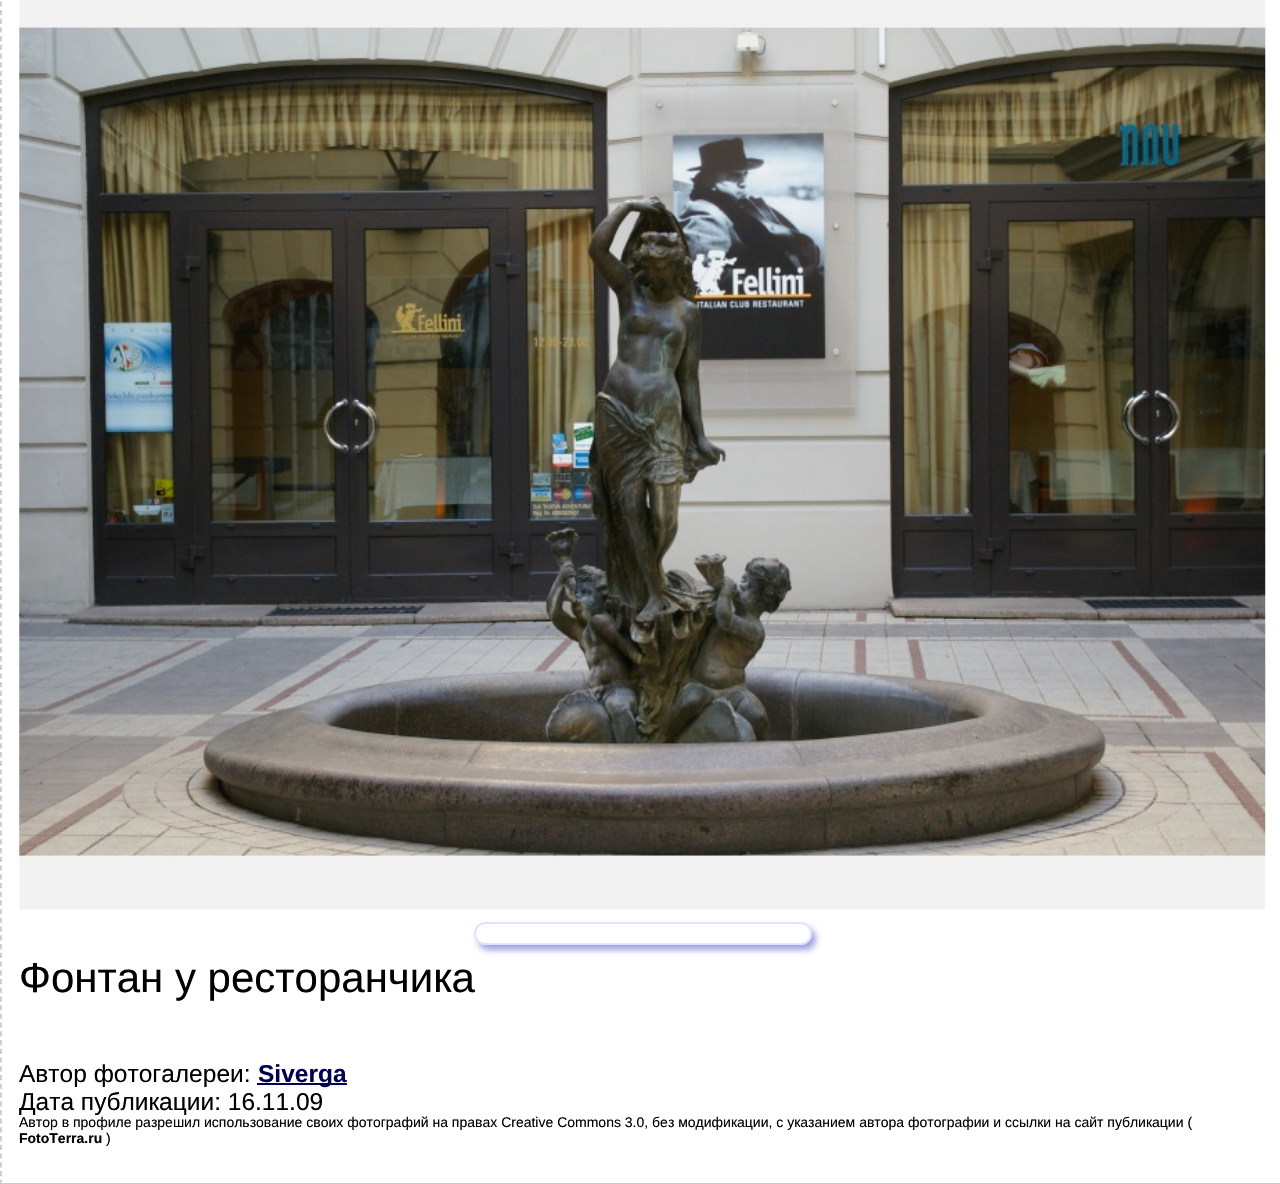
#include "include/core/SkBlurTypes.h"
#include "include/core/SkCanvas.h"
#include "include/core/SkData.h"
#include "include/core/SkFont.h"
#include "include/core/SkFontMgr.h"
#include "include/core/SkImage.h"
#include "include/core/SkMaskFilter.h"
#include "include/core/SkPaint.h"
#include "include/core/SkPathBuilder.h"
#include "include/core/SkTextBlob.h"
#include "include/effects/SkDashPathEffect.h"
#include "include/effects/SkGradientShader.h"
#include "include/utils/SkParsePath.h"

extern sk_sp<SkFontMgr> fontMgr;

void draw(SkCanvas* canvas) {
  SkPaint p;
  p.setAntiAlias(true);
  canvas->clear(SK_ColorWHITE);
  p.setColor(SkColorSetRGB(204, 204, 204));
  canvas->drawRect(SkRect::MakeLTRB(0, 1183, 1280, 1184), p);
  p.setStyle(SkPaint::kStroke_Style);
  p.setStrokeWidth(1.8f);
  p.setPathEffect(SkDashPathEffect::Make({{5.25f, 3.48f}}, 0));
  canvas->drawPath(SkPathBuilder().moveTo(1, -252).lineTo(1, 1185).detach(), p);
  p.setPathEffect(nullptr);
  canvas->drawImageRect(SkImages::DeferredFromEncodedData(SkData::MakeFromFileName("images/1.png")), SkRect::MakeLTRB(19, 0, 1266, 910), SkSamplingOptions());
  canvas->save();
  canvas->clipPath(SkPathBuilder(SkPathFillType::kEvenOdd).moveTo(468, 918).lineTo(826, 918).lineTo(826, 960).lineTo(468, 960).close().moveTo(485.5f, 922).lineTo(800.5f, 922).cubicTo(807, 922, 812, 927, 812, 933.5f).cubicTo(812, 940, 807, 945, 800.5f, 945).lineTo(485.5f, 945).cubicTo(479, 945, 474, 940, 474, 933.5f).cubicTo(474, 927, 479, 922, 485.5f, 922).close().detach(), true);
  p.setStyle(SkPaint::kFill_Style);
  p.setColor(SkColorSetRGB(160, 160, 224));
  p.setMaskFilter(SkMaskFilter::MakeBlur(kNormal_SkBlurStyle, 3));
  canvas->drawRoundRect(SkRect::MakeLTRB(478, 928, 816, 950), 11, 11, p);
  p.setMaskFilter(nullptr);
  canvas->restore();
  p.setStyle(SkPaint::kStroke_Style);
  p.setStrokeWidth(2);
  p.setColor(SkColorSetRGB(225, 226, 254));
  canvas->drawRoundRect(SkRect::MakeLTRB(475, 923, 811, 944), 10.5f, 10.5f, p);
  p.setStyle(SkPaint::kFill_Style);
  p.setColor(SkColorSetRGB(0, 2, 80));
  canvas->drawRect(SkRect::MakeLTRB(257, 1083, 347, 1085), p);
  SkFont font1(fontMgr->matchFamilyStyle("Liberation Sans", SkFontStyle::Normal()), 42);
  font1.setSubpixel(true);
  p.setColor(SK_ColorBLACK);
  canvas->drawString("Фонтан у ресторанчика", 19, 992, font1, p);
  SkFont font2(fontMgr->matchFamilyStyle("Liberation Sans", SkFontStyle::Normal()), 24.5f);
  font2.setSubpixel(true);
  canvas->drawString("Автор фотогалереи:", 19, 1082, font2, p);
  SkFont font3(fontMgr->matchFamilyStyle("Liberation Sans", SkFontStyle::Bold()), 24.5f);
  font3.setSubpixel(true);
  p.setColor(SkColorSetRGB(0, 2, 80));
  canvas->drawString("Siverga", 258, 1082, font3, p);
  p.setColor(SK_ColorBLACK);
  canvas->drawString("Дата публикации: 16.11.09", 19, 1110, font2, p);
  SkFont font4(fontMgr->matchFamilyStyle("Liberation Sans", SkFontStyle::Normal()), 14);
  font4.setSubpixel(true);
  canvas->drawString("Автор в профиле разрешил использование своих фотографий на правах Creative Commons 3.0, без модификации, с указанием автора фотографии и ссылки на сайт публикации (", 19, 1127, font4, p);
  SkFont font5(fontMgr->matchFamilyStyle("Liberation Sans", SkFontStyle::Bold()), 14);
  font5.setSubpixel(true);
  canvas->drawString("FotoTerra.ru", 19, 1143, font5, p);
  canvas->drawString(")", 106, 1143, font4, p);
}
